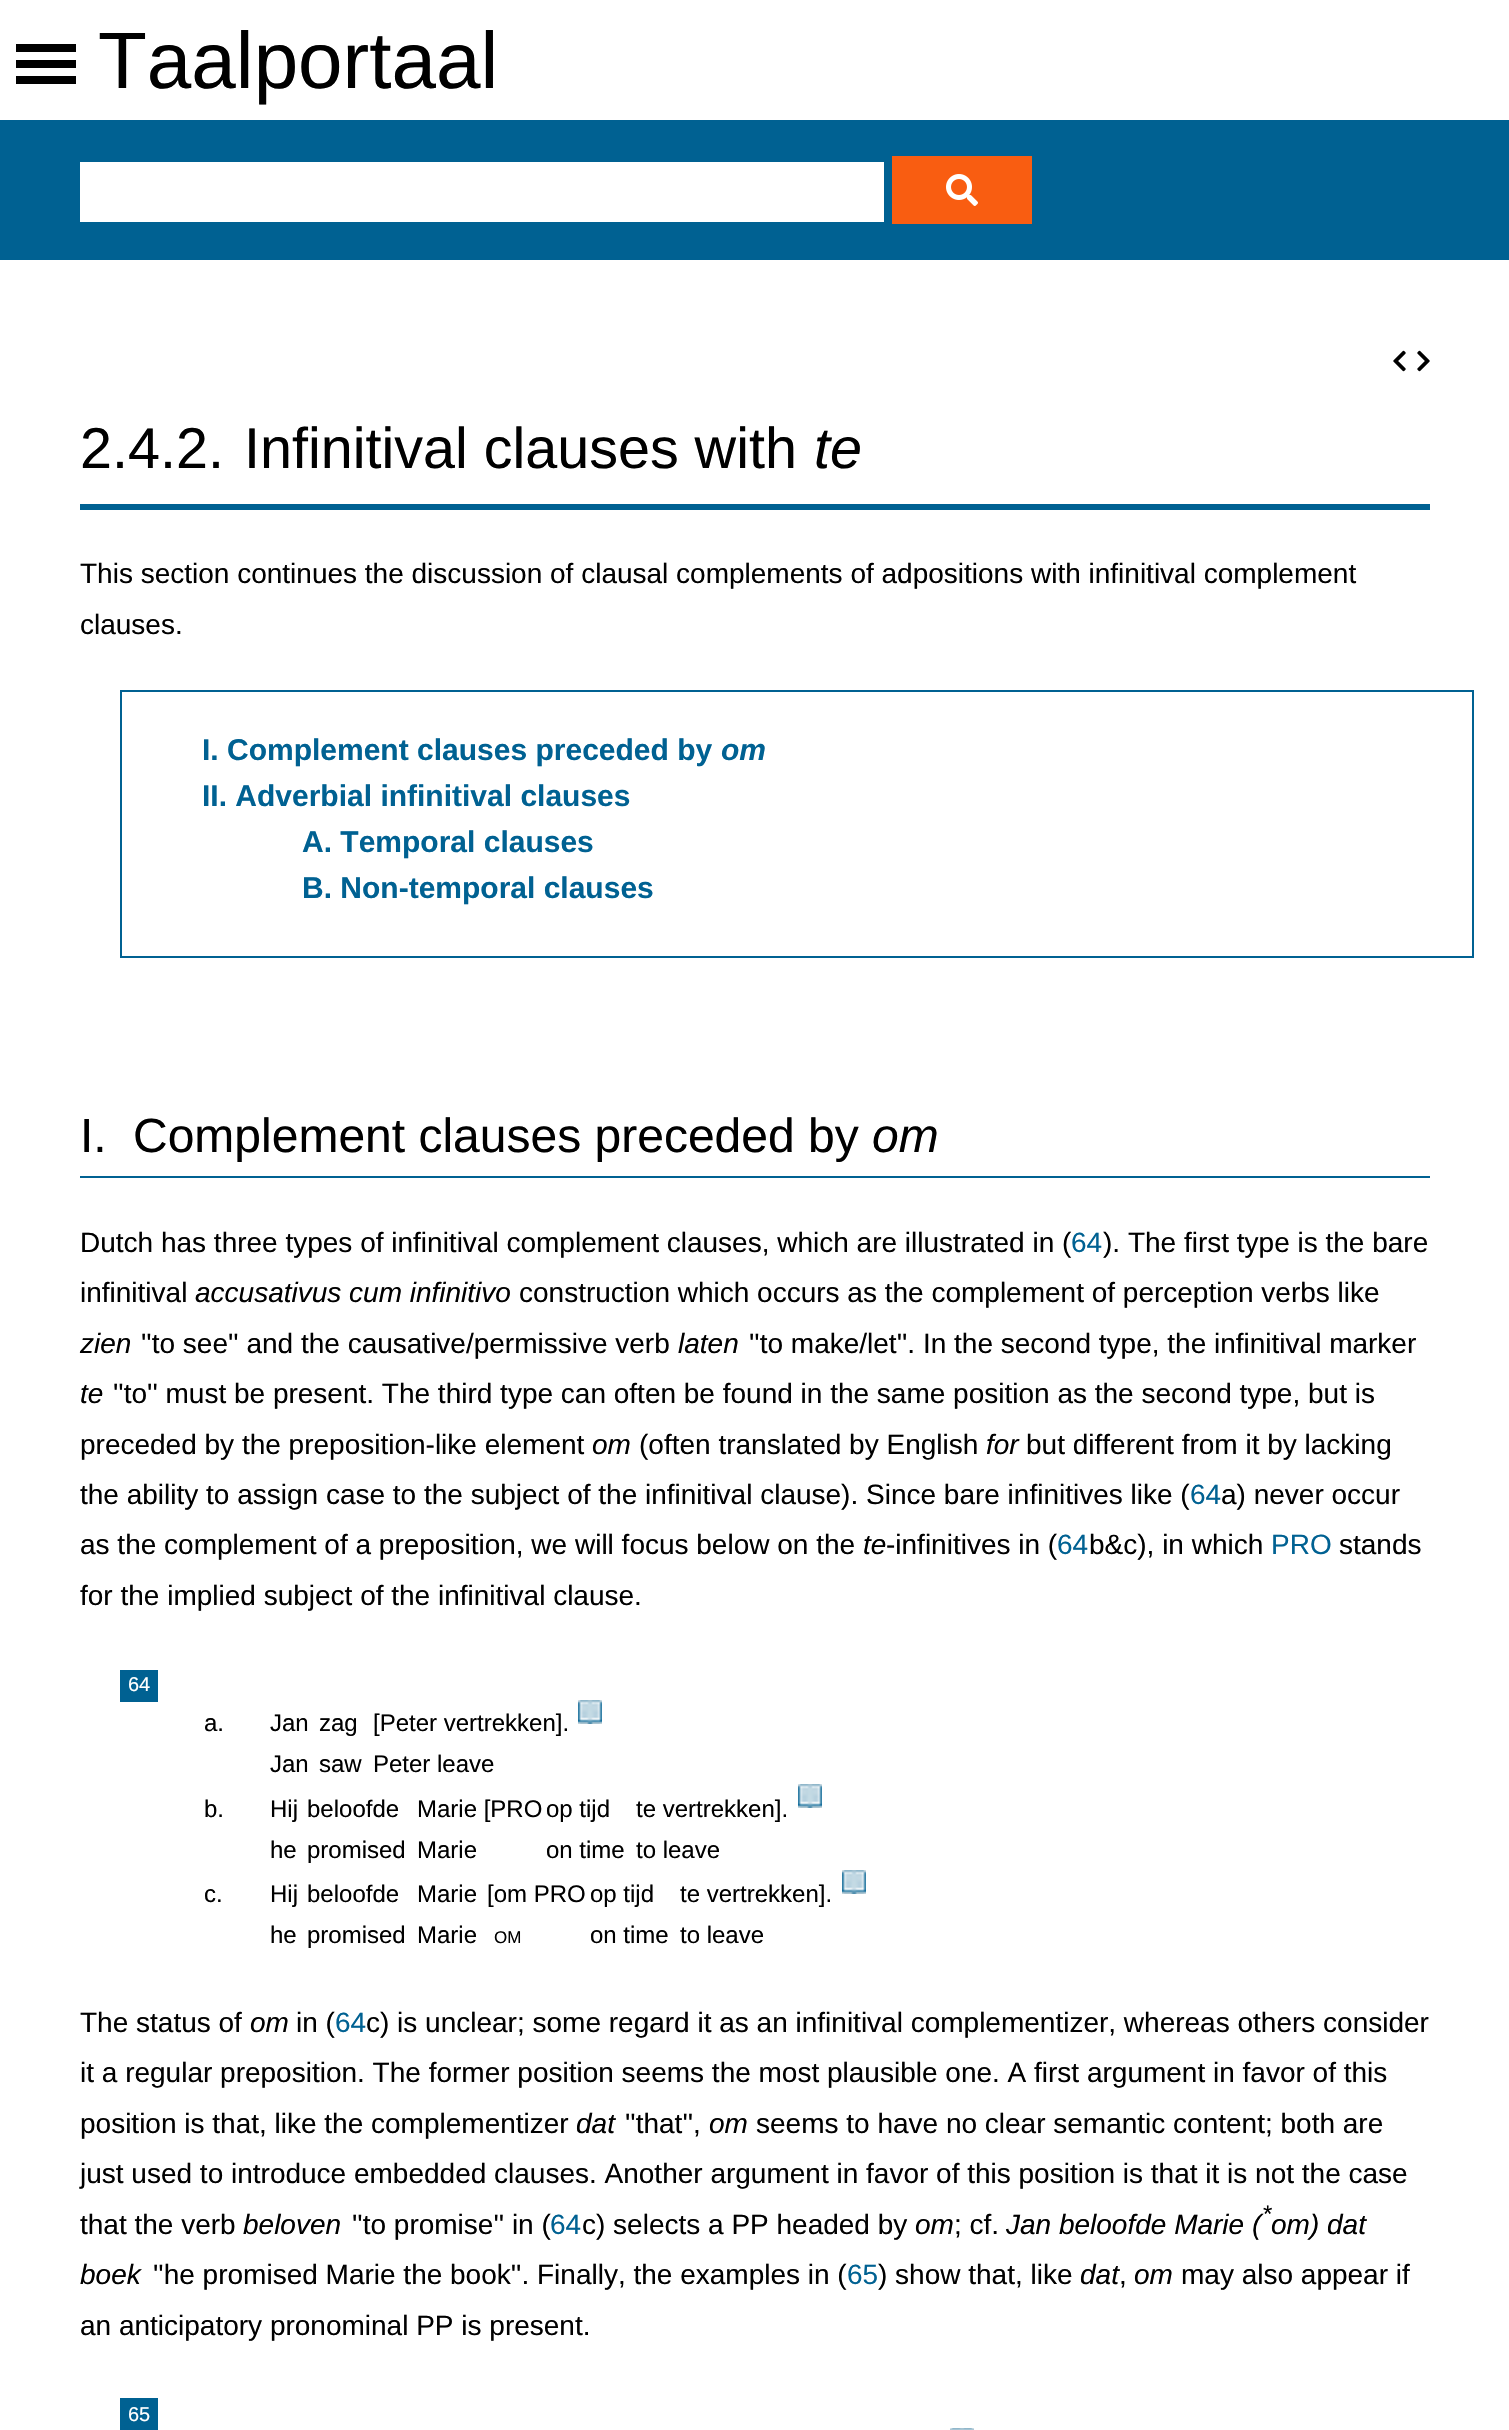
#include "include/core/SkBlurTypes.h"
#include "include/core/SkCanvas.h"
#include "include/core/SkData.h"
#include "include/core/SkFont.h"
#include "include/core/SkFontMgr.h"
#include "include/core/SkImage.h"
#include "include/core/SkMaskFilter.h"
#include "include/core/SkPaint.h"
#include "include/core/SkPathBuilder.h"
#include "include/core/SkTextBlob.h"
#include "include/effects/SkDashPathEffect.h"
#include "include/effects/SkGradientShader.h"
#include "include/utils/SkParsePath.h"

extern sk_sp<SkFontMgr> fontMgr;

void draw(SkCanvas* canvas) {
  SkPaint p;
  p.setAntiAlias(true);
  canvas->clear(SK_ColorWHITE);
  p.setColor(SkColorSetRGB(0, 97, 146));
  canvas->drawRect(SkRect::MakeLTRB(0, 120, 1509, 260), p);
  p.setColor(SK_ColorWHITE);
  canvas->drawRect(SkRect::MakeLTRB(80, 162, 884, 222), p);
  p.setColor(SkColorSetRGB(249, 93, 17));
  canvas->drawRect(SkRect::MakeLTRB(892, 156, 1032, 224), p);
  canvas->drawImageRect(SkImages::DeferredFromEncodedData(SkData::MakeFromFileName("images/1.png")), SkRect::MakeLTRB(946, 174, 978, 206), SkSamplingOptions());
  p.setColor(SK_ColorBLACK);
  canvas->drawRect(SkRect::MakeLTRB(16, 60, 76, 68), p);
  canvas->drawRect(SkRect::MakeLTRB(16, 44, 76, 52), p);
  canvas->drawRect(SkRect::MakeLTRB(16, 76, 76, 84), p);
  canvas->drawImageRect(SkImages::DeferredFromEncodedData(SkData::MakeFromFileName("images/2.png")), SkRect::MakeLTRB(1393, 350, 1406, 372), SkSamplingOptions());
  canvas->drawImageRect(SkImages::DeferredFromEncodedData(SkData::MakeFromFileName("images/3.png")), SkRect::MakeLTRB(1417, 350, 1430, 372), SkSamplingOptions());
  p.setColor(SkColorSetRGB(0, 97, 146));
  canvas->drawRect(SkRect::MakeLTRB(80, 504, 1430, 510), p);
  p.setStyle(SkPaint::kStroke_Style);
  p.setStrokeWidth(2);
  canvas->drawRect(SkRect::MakeLTRB(121, 691, 1473, 957), p);
  p.setStyle(SkPaint::kFill_Style);
  canvas->drawRect(SkRect::MakeLTRB(80, 1176, 1430, 1178), p);
  canvas->drawRect(SkRect::MakeLTRB(120, 1670, 158, 1702), p);
  canvas->drawImageRect(SkImages::DeferredFromEncodedData(SkData::MakeFromFileName("images/4.png")), SkRect::MakeLTRB(578, 1700, 602, 1724), SkSamplingOptions());
  canvas->drawImageRect(SkImages::DeferredFromEncodedData(SkData::MakeFromFileName("images/4.png")), SkRect::MakeLTRB(798, 1784, 822, 1808), SkSamplingOptions());
  canvas->drawImageRect(SkImages::DeferredFromEncodedData(SkData::MakeFromFileName("images/4.png")), SkRect::MakeLTRB(842, 1870, 866, 1894), SkSamplingOptions());
  canvas->drawRect(SkRect::MakeLTRB(120, 2398, 158, 2430), p);
  canvas->drawImageRect(SkImages::DeferredFromEncodedData(SkData::MakeFromFileName("images/5.png")), SkRect::MakeLTRB(950, 2428, 974, 2430), SkSamplingOptions());
  SkFont font1(fontMgr->matchFamilyStyle("Liberation Sans", SkFontStyle::Normal()), 80);
  font1.setSubpixel(true);
  p.setColor(SK_ColorBLACK);
  canvas->drawString("Taalportaal", 98, 88, font1, p);
  SkFont font2(fontMgr->matchFamilyStyle("Liberation Sans", SkFontStyle::Normal()), 57.5f);
  font2.setSubpixel(true);
  canvas->drawString("2.4.2.", 80, 468, font2, p);
  canvas->drawString("Infinitival clauses with", 244, 468, font2, p);
  SkFont font3(fontMgr->matchFamilyStyle("Liberation Sans", SkFontStyle::Italic()), 57.5f);
  font3.setSubpixel(true);
  canvas->drawString("te", 814, 468, font3, p);
  SkFont font4(fontMgr->matchFamilyStyle("Liberation Sans", SkFontStyle::Normal()), 28);
  font4.setSubpixel(true);
  canvas->drawString("This section continues the discussion of clausal complements of adpositions with infinitival complement", 80, 583, font4, p);
  canvas->drawString("clauses.", 80, 634, font4, p);
  SkFont font5(fontMgr->matchFamilyStyle("Liberation Sans", SkFontStyle::Bold()), 30);
  font5.setSubpixel(true);
  p.setColor(SkColorSetRGB(0, 97, 146));
  canvas->drawString("I. Complement clauses preceded by", 202, 760, font5, p);
  SkFont font6(fontMgr->matchFamilyStyle("Liberation Sans", SkFontStyle::BoldItalic()), 30);
  font6.setSubpixel(true);
  canvas->drawString("om", 721, 760, font6, p);
  canvas->drawString("II. Adverbial infinitival clauses", 202, 806, font5, p);
  canvas->drawString("A. Temporal clauses", 302, 852, font5, p);
  canvas->drawString("B. Non-temporal clauses", 302, 898, font5, p);
  SkFont font7(fontMgr->matchFamilyStyle("Liberation Sans", SkFontStyle::Normal()), 48);
  font7.setSubpixel(true);
  p.setColor(SK_ColorBLACK);
  canvas->drawString("I.", 80, 1152, font7, p);
  canvas->drawString("Complement clauses preceded by", 133, 1152, font7, p);
  SkFont font8(fontMgr->matchFamilyStyle("Liberation Sans", SkFontStyle::Italic()), 48);
  font8.setSubpixel(true);
  canvas->drawString("om", 872, 1152, font8, p);
  canvas->drawString("Dutch has three types of infinitival complement clauses, which are illustrated in (", 80, 1252, font4, p);
  p.setColor(SkColorSetRGB(0, 97, 146));
  canvas->drawString("64", 1071, 1252, font4, p);
  p.setColor(SK_ColorBLACK);
  canvas->drawString("). The first type is the bare", 1103, 1252, font4, p);
  canvas->drawString("infinitival", 80, 1302, font4, p);
  SkFont font9(fontMgr->matchFamilyStyle("Liberation Sans", SkFontStyle::Italic()), 28);
  font9.setSubpixel(true);
  canvas->drawString("accusativus cum infinitivo", 195, 1302, font9, p);
  canvas->drawString("construction which occurs as the complement of perception verbs like", 519, 1302, font4, p);
  canvas->drawString("zien", 80, 1353, font9, p);
  canvas->drawString("''to see'' and the causative/permissive verb", 141, 1353, font4, p);
  canvas->drawString("laten", 678, 1353, font9, p);
  canvas->drawString("''to make/let''. In the second type, the infinitival marker", 749, 1353, font4, p);
  canvas->drawString("te", 80, 1403, font9, p);
  canvas->drawString("''to'' must be present. The third type can often be found in the same position as the second type, but is", 113, 1403, font4, p);
  canvas->drawString("preceded by the preposition-like element", 80, 1454, font4, p);
  canvas->drawString("om", 592, 1454, font9, p);
  canvas->drawString("(often translated by English", 639, 1454, font4, p);
  canvas->drawString("for", 986, 1454, font9, p);
  canvas->drawString("but different from it by lacking", 1026, 1454, font4, p);
  canvas->drawString("the ability to assign case to the subject of the infinitival clause). Since bare infinitives like (", 80, 1504, font4, p);
  p.setColor(SkColorSetRGB(0, 97, 146));
  canvas->drawString("64", 1190, 1504, font4, p);
  p.setColor(SK_ColorBLACK);
  canvas->drawString("a) never occur", 1221, 1504, font4, p);
  canvas->drawString("as the complement of a preposition, we will focus below on the", 80, 1554, font4, p);
  canvas->drawString("te", 863, 1554, font9, p);
  canvas->drawString("-infinitives in (", 886, 1554, font4, p);
  p.setColor(SkColorSetRGB(0, 97, 146));
  canvas->drawString("64", 1057, 1554, font4, p);
  p.setColor(SK_ColorBLACK);
  canvas->drawString("b&c), in which", 1089, 1554, font4, p);
  p.setColor(SkColorSetRGB(0, 97, 146));
  canvas->drawString("PRO", 1271, 1554, font4, p);
  p.setColor(SK_ColorBLACK);
  canvas->drawString("stands", 1339, 1554, font4, p);
  canvas->drawString("for the implied subject of the infinitival clause.", 80, 1605, font4, p);
  SkFont font10(fontMgr->matchFamilyStyle("Liberation Sans", SkFontStyle::Normal()), 20);
  font10.setSubpixel(true);
  p.setColor(SK_ColorWHITE);
  canvas->drawString("64", 128, 1691, font10, p);
  SkFont font11(fontMgr->matchFamilyStyle("Liberation Sans", SkFontStyle::Normal()), 24);
  font11.setSubpixel(true);
  p.setColor(SK_ColorBLACK);
  canvas->drawString("a.", 204, 1731, font11, p);
  canvas->drawString("Jan", 270, 1731, font11, p);
  canvas->drawString("zag", 319, 1731, font11, p);
  canvas->drawString("[Peter vertrekken].", 373, 1731, font11, p);
  canvas->drawString("Jan", 270, 1772, font11, p);
  canvas->drawString("saw", 319, 1772, font11, p);
  canvas->drawString("Peter leave", 373, 1772, font11, p);
  canvas->drawString("b.", 204, 1817, font11, p);
  canvas->drawString("Hij", 270, 1817, font11, p);
  canvas->drawString("beloofde", 307, 1817, font11, p);
  canvas->drawString("Marie [PRO", 417, 1817, font11, p);
  canvas->drawString("op tijd", 546, 1817, font11, p);
  canvas->drawString("te vertrekken].", 636, 1817, font11, p);
  canvas->drawString("he", 270, 1858, font11, p);
  canvas->drawString("promised", 307, 1858, font11, p);
  canvas->drawString("Marie", 417, 1858, font11, p);
  canvas->drawString("on time", 546, 1858, font11, p);
  canvas->drawString("to leave", 636, 1858, font11, p);
  canvas->drawString("c.", 204, 1902, font11, p);
  canvas->drawString("Hij", 270, 1902, font11, p);
  canvas->drawString("beloofde", 307, 1902, font11, p);
  canvas->drawString("Marie", 417, 1902, font11, p);
  canvas->drawString("[om PRO", 487, 1902, font11, p);
  canvas->drawString("op tijd", 590, 1902, font11, p);
  canvas->drawString("te vertrekken].", 680, 1902, font11, p);
  canvas->drawString("he", 270, 1943, font11, p);
  canvas->drawString("promised", 307, 1943, font11, p);
  canvas->drawString("Marie", 417, 1943, font11, p);
  SkFont font12(fontMgr->matchFamilyStyle("Liberation Sans", SkFontStyle::Normal()), 17);
  font12.setSubpixel(true);
  canvas->drawString("OM", 494, 1943, font12, p);
  canvas->drawString("on time", 590, 1943, font11, p);
  canvas->drawString("to leave", 680, 1943, font11, p);
  canvas->drawString("The status of", 80, 2032, font4, p);
  canvas->drawString("om", 250, 2032, font9, p);
  canvas->drawString("in (", 296, 2032, font4, p);
  p.setColor(SkColorSetRGB(0, 97, 146));
  canvas->drawString("64", 335, 2032, font4, p);
  p.setColor(SK_ColorBLACK);
  canvas->drawString("c) is unclear; some regard it as an infinitival complementizer, whereas others consider", 366, 2032, font4, p);
  canvas->drawString("it a regular preposition. The former position seems the most plausible one. A first argument in favor of this", 80, 2082, font4, p);
  canvas->drawString("position is that, like the complementizer", 80, 2133, font4, p);
  canvas->drawString("dat", 576, 2133, font9, p);
  canvas->drawString("''that'',", 625, 2133, font4, p);
  canvas->drawString("om", 709, 2133, font9, p);
  canvas->drawString("seems to have no clear semantic content; both are", 756, 2133, font4, p);
  canvas->drawString("just used to introduce embedded clauses. Another argument in favor of this position is that it is not the case", 80, 2183, font4, p);
  SkFont font13(fontMgr->matchFamilyStyle("Liberation Sans", SkFontStyle::Italic()), 24);
  font13.setSubpixel(true);
  canvas->drawString("*", 1262, 2222, font13, p);
  canvas->drawString("that the verb", 80, 2234, font4, p);
  canvas->drawString("beloven", 243, 2234, font9, p);
  canvas->drawString("''to promise'' in (", 352, 2234, font4, p);
  p.setColor(SkColorSetRGB(0, 97, 146));
  canvas->drawString("64", 550, 2234, font4, p);
  p.setColor(SK_ColorBLACK);
  canvas->drawString("c) selects a PP headed by", 582, 2234, font4, p);
  canvas->drawString("om", 915, 2234, font9, p);
  canvas->drawString("; cf.", 954, 2234, font4, p);
  canvas->drawString("Jan beloofde Marie (", 1006, 2234, font9, p);
  canvas->drawString("om) dat", 1271, 2234, font9, p);
  canvas->drawString("boek", 80, 2284, font9, p);
  canvas->drawString("''he promised Marie the book''. Finally, the examples in (", 153, 2284, font4, p);
  p.setColor(SkColorSetRGB(0, 97, 146));
  canvas->drawString("65", 847, 2284, font4, p);
  p.setColor(SK_ColorBLACK);
  canvas->drawString(") show that, like", 878, 2284, font4, p);
  canvas->drawString("dat", 1080, 2284, font9, p);
  canvas->drawString(",", 1119, 2284, font4, p);
  canvas->drawString("om", 1134, 2284, font9, p);
  canvas->drawString("may also appear if", 1181, 2284, font4, p);
  canvas->drawString("an anticipatory pronominal PP is present.", 80, 2335, font4, p);
  p.setColor(SK_ColorWHITE);
  canvas->drawString("65", 128, 2421, font10, p);
}
